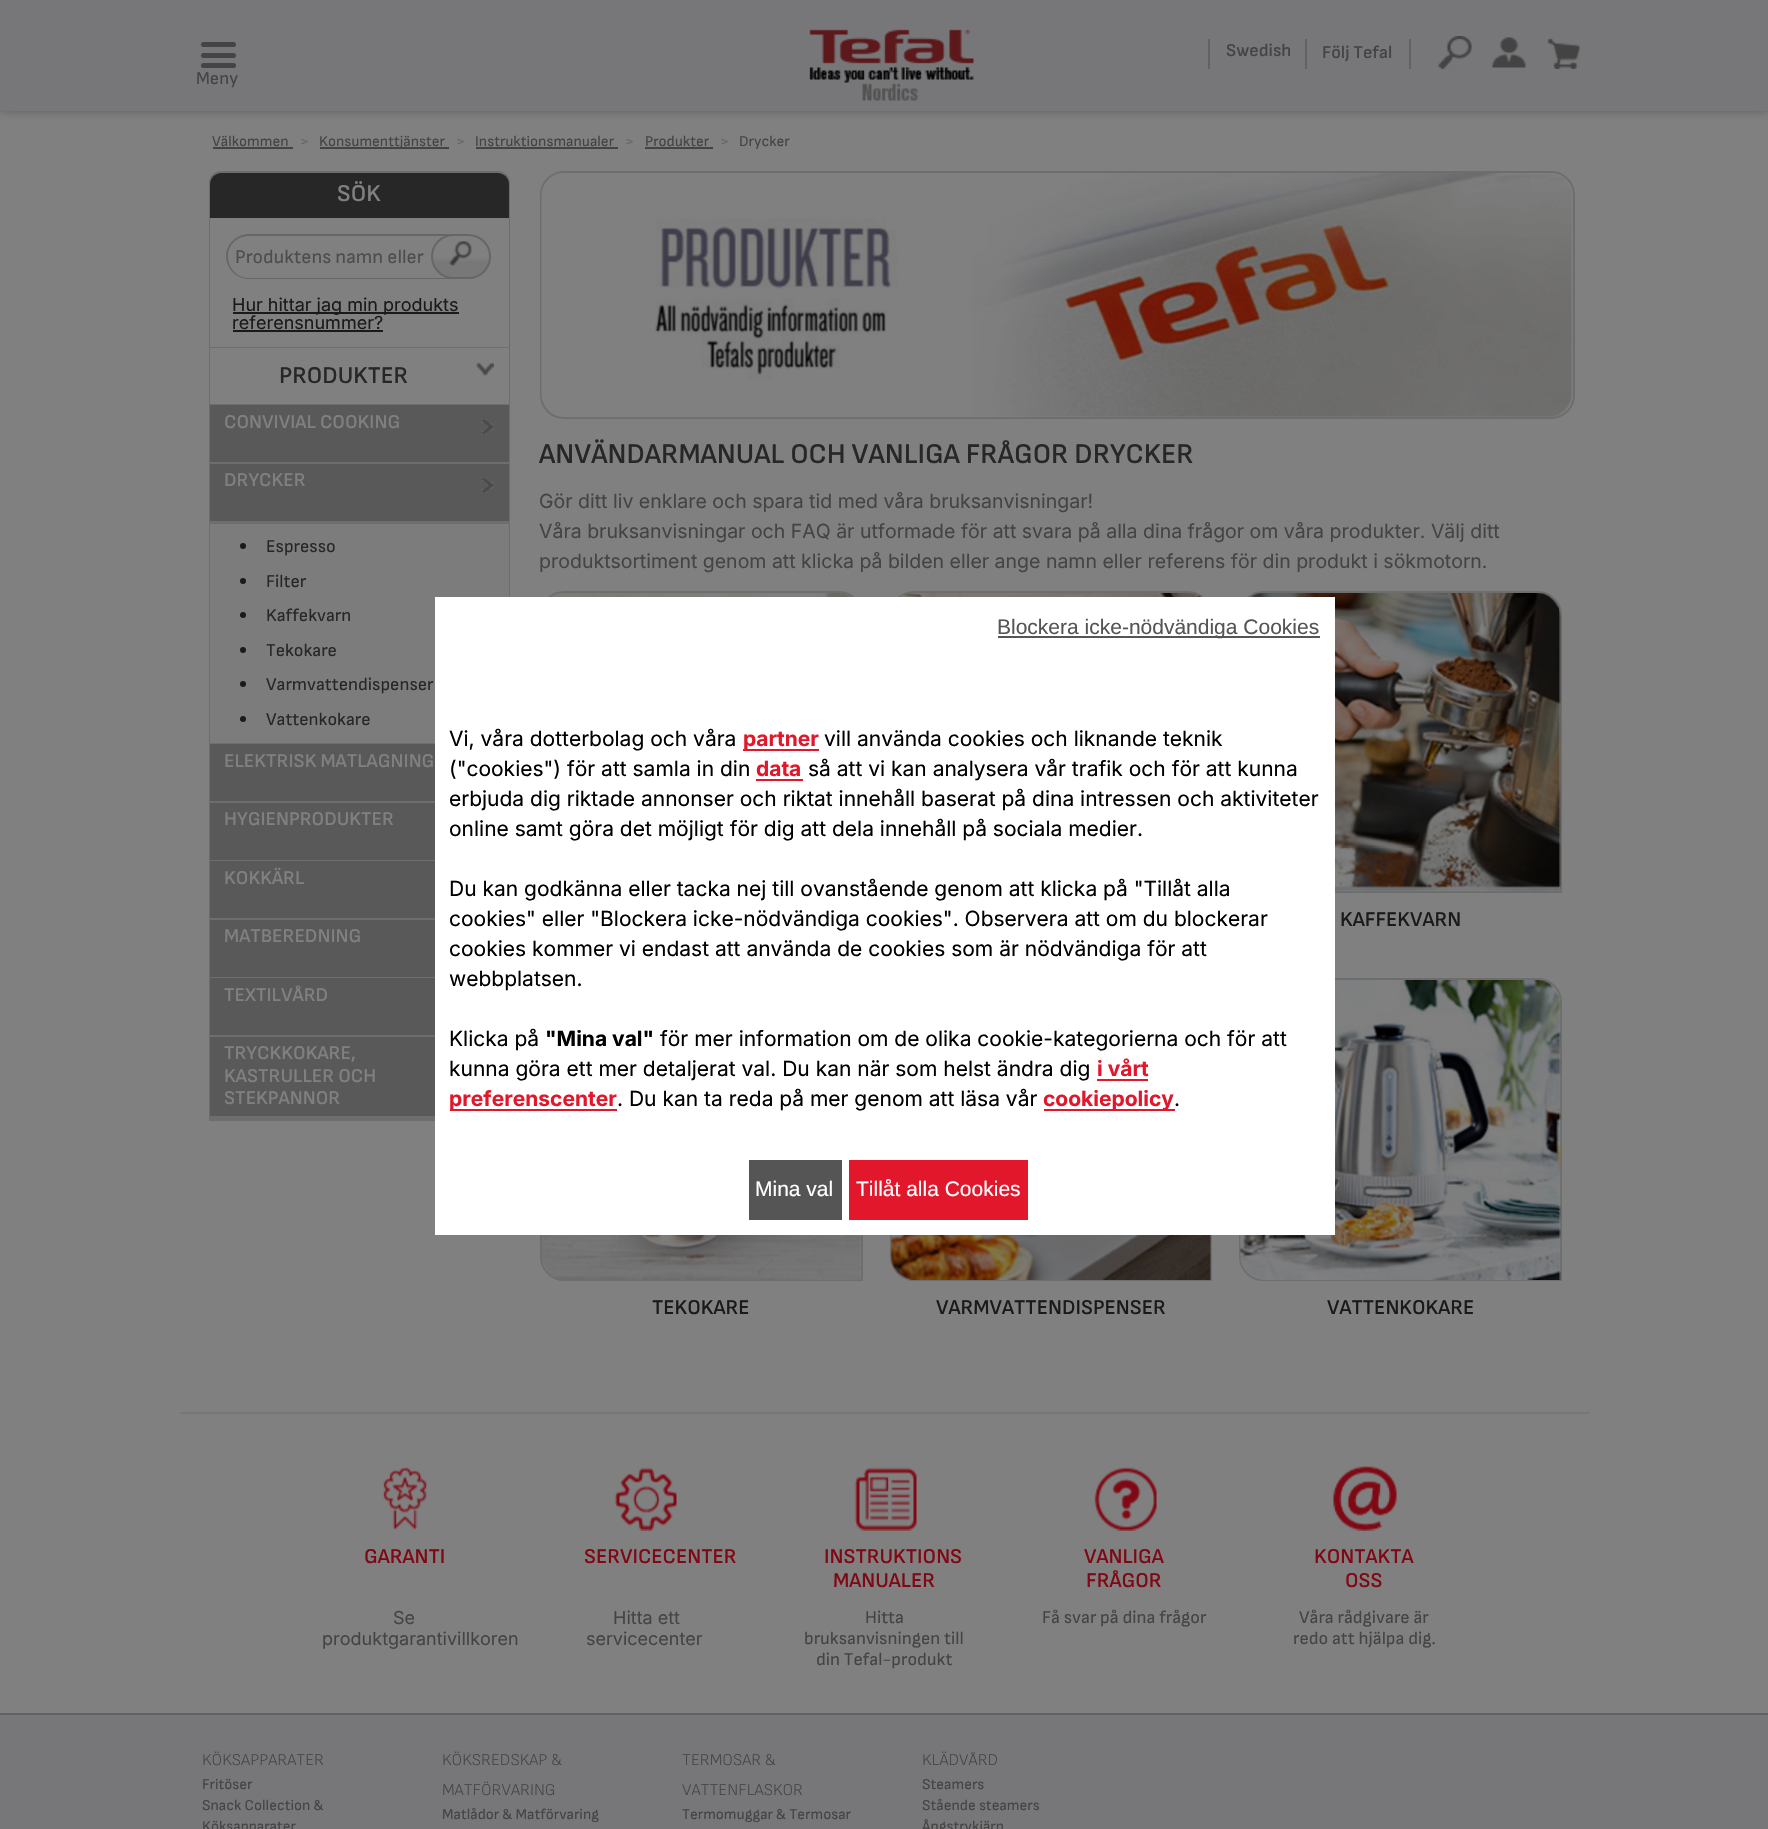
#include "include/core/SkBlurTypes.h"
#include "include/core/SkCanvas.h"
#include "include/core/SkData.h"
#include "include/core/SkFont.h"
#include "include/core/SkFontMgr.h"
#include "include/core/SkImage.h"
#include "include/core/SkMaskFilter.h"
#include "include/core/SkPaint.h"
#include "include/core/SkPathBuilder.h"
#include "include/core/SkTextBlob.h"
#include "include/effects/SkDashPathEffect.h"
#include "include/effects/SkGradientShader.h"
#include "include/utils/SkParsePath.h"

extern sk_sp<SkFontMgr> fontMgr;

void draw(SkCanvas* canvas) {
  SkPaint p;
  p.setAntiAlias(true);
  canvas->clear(SkColorSetRGB(128, 128, 128));
  p.setColor(SkColorSetRGB(94, 94, 94));
  p.setMaskFilter(SkMaskFilter::MakeBlur(kNormal_SkBlurStyle, 4.5f));
  canvas->drawRect(SkRect::MakeLTRB(0, 0, 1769, 111), p);
  p.setMaskFilter(nullptr);
  p.setColor(SkColorSetRGB(119, 119, 121));
  canvas->drawRect(SkRect::MakeLTRB(0, 0, 1768, 111), p);
  canvas->drawImageRect(SkImages::DeferredFromEncodedData(SkData::MakeFromFileName("images/1.png")), SkRect::MakeLTRB(809, 29, 974, 101), SkSamplingOptions());
  p.setColor(SkColorSetRGB(98, 98, 98));
  canvas->drawRect(SkRect::MakeLTRB(1208, 39, 1210, 69), p);
  canvas->drawRect(SkRect::MakeLTRB(1305, 39, 1307, 69), p);
  canvas->drawRect(SkRect::MakeLTRB(1409, 39, 1411, 69), p);
  canvas->drawImageRect(SkImages::DeferredFromEncodedData(SkData::MakeFromFileName("images/2.png")), SkRect::MakeLTRB(1438, 36, 1472, 69), SkSamplingOptions());
  canvas->drawImageRect(SkImages::DeferredFromEncodedData(SkData::MakeFromFileName("images/3.png")), SkRect::MakeLTRB(1492, 37, 1526, 68), SkSamplingOptions());
  canvas->drawImageRect(SkImages::DeferredFromEncodedData(SkData::MakeFromFileName("images/4.png")), SkRect::MakeLTRB(1547, 38, 1580, 69), SkSamplingOptions());
  p.setColor(SkColorSetRGB(68, 68, 68));
  canvas->drawRoundRect(SkRect::MakeLTRB(201, 53, 236, 58), 2.5f, 2.5f, p);
  canvas->drawRoundRect(SkRect::MakeLTRB(201, 42, 236, 47), 2.5f, 2.5f, p);
  canvas->drawRoundRect(SkRect::MakeLTRB(201, 63, 236, 68), 2.5f, 2.5f, p);
  canvas->drawRect(SkRect::MakeLTRB(213, 147, 293, 149), p);
  canvas->drawRect(SkRect::MakeLTRB(320, 147, 449, 149), p);
  canvas->drawRect(SkRect::MakeLTRB(476, 147, 618, 149), p);
  canvas->drawRect(SkRect::MakeLTRB(645, 147, 713, 149), p);
  p.setColor(SkColorSetRGB(119, 119, 121));
  canvas->drawRect(SkRect::MakeLTRB(180, 1412, 1590, 1414), p);
  p.setStyle(SkPaint::kStroke_Style);
  p.setStrokeWidth(2);
  p.setColor(SkColorSetRGB(109, 109, 109));
  canvas->drawPath(SkPathBuilder().moveTo(221, 172).lineTo(498, 172).cubicTo(504, 172, 509, 177, 509, 183).lineTo(509, 1120).lineTo(210, 1120).lineTo(210, 183).cubicTo(210, 177, 215, 172, 221, 172).close().detach(), p);
  p.setStyle(SkPaint::kFill_Style);
  p.setColor(SkColorSetRGB(128, 128, 128));
  canvas->drawPath(SkPathBuilder().moveTo(221, 173).lineTo(498, 173).cubicTo(504, 173, 509, 178, 509, 184).lineTo(509, 348).lineTo(210, 348).lineTo(210, 184).cubicTo(210, 178, 215, 173, 221, 173).close().detach(), p);
  p.setColor(SkColorSetRGB(39, 39, 39));
  canvas->drawPath(SkPathBuilder().moveTo(221, 173).lineTo(498, 173).cubicTo(504, 173, 509, 178, 509, 184).lineTo(509, 218).lineTo(210, 218).lineTo(210, 184).cubicTo(210, 178, 215, 173, 221, 173).close().detach(), p);
  p.setColor(SkColorSetRGB(110, 110, 110));
  canvas->drawRect(SkRect::MakeLTRB(210, 347, 509, 348), p);
  p.setColor(SkColorSetRGB(102, 102, 102));
  canvas->drawPath(SkPathBuilder(SkPathFillType::kEvenOdd).moveTo(249, 234).lineTo(460, 234).lineTo(460, 279).lineTo(249, 279).cubicTo(237, 279, 226, 269, 226, 256).cubicTo(226, 244, 237, 234, 249, 234).close().moveTo(249, 236).lineTo(460, 236).lineTo(460, 278).lineTo(249, 278).cubicTo(237, 278, 228, 268, 228, 256).cubicTo(228, 245, 237, 236, 249, 236).close().detach(), p);
  canvas->save();
  canvas->clipPath(SkPathBuilder().moveTo(453.5f, 234).lineTo(468.5f, 234).cubicTo(481, 234, 491, 244, 491, 256.5f).cubicTo(491, 269, 481, 279, 468.5f, 279).lineTo(453.5f, 279).cubicTo(441, 279, 431, 269, 431, 256.5f).cubicTo(431, 244, 441, 234, 453.5f, 234).close().detach(), true);
  {
    const SkColor colors[] = {SkColorSetRGB(120, 120, 120), SkColorSetRGB(128, 128, 128)};
    const float stops[] = {0.37f, 0.5f};
    const SkPoint ends[] = {{432, 278}, {432, 236}};
    p.setShader(SkGradientShader::MakeLinear(ends, colors, stops, 2, SkTileMode::kClamp));
    p.setAlpha(255);
  }
  canvas->drawRect(SkRect::MakeLTRB(431, 236, 491, 278), p);
  canvas->restore();
  p.setStyle(SkPaint::kStroke_Style);
  p.setShader(nullptr);
  p.setColor(SkColorSetRGB(102, 102, 102));
  canvas->drawRoundRect(SkRect::MakeLTRB(432, 235, 490, 278), 21.5f, 21.5f, p);
  canvas->drawImageRect(SkImages::DeferredFromEncodedData(SkData::MakeFromFileName("images/5.png")), SkRect::MakeLTRB(449, 241, 472, 266), SkSamplingOptions());
  p.setStyle(SkPaint::kFill_Style);
  p.setColor(SkColorSetRGB(26, 26, 26));
  canvas->drawRect(SkRect::MakeLTRB(233, 312, 459, 314), p);
  canvas->drawRect(SkRect::MakeLTRB(233, 330, 383, 332), p);
  p.setColor(SkColorSetRGB(128, 128, 128));
  canvas->drawRect(SkRect::MakeLTRB(210, 348, 509, 404), p);
  canvas->drawImageRect(SkImages::DeferredFromEncodedData(SkData::MakeFromFileName("images/6.png")), SkRect::MakeLTRB(476, 362, 494, 376), SkSamplingOptions());
  p.setColor(SkColorSetRGB(110, 110, 110));
  canvas->drawRect(SkRect::MakeLTRB(210, 404, 509, 405), p);
  canvas->drawRect(SkRect::MakeLTRB(210, 1116, 435, 1119), p);
  p.setColor(SkColorSetRGB(89, 89, 89));
  canvas->drawRect(SkRect::MakeLTRB(210, 405, 509, 462), p);
  p.setColor(SkColorSetRGB(110, 110, 110));
  canvas->drawRect(SkRect::MakeLTRB(210, 462, 509, 464), p);
  canvas->drawImageRect(SkImages::DeferredFromEncodedData(SkData::MakeFromFileName("images/7.png")), SkRect::MakeLTRB(481, 418, 494, 435), SkSamplingOptions());
  p.setColor(SkColorSetRGB(89, 89, 89));
  canvas->drawRect(SkRect::MakeLTRB(210, 464, 509, 521), p);
  p.setColor(SkColorSetRGB(110, 110, 110));
  canvas->drawRect(SkRect::MakeLTRB(210, 521, 509, 524), p);
  canvas->drawImageRect(SkImages::DeferredFromEncodedData(SkData::MakeFromFileName("images/8.png")), SkRect::MakeLTRB(481, 477, 494, 494), SkSamplingOptions());
  canvas->drawRect(SkRect::MakeLTRB(210, 743, 435, 744), p);
  p.setColor(SkColorSetRGB(124, 124, 124));
  canvas->drawRect(SkRect::MakeLTRB(210, 524, 509, 743), p);
  p.setColor(SkColorSetRGB(26, 26, 26));
  canvas->drawCircle(243, 546, 3, p);
  canvas->drawCircle(243, 581, 3, p);
  canvas->drawCircle(243, 615, 3, p);
  canvas->drawCircle(243, 650, 3, p);
  canvas->drawCircle(243, 684, 3, p);
  canvas->drawCircle(243, 719, 3, p);
  p.setColor(SkColorSetRGB(89, 89, 89));
  canvas->drawRect(SkRect::MakeLTRB(210, 744, 435, 801), p);
  p.setColor(SkColorSetRGB(110, 110, 110));
  canvas->drawRect(SkRect::MakeLTRB(210, 801, 435, 803), p);
  p.setColor(SkColorSetRGB(89, 89, 89));
  canvas->drawRect(SkRect::MakeLTRB(210, 803, 435, 860), p);
  p.setColor(SkColorSetRGB(110, 110, 110));
  canvas->drawRect(SkRect::MakeLTRB(210, 860, 435, 861), p);
  p.setColor(SkColorSetRGB(89, 89, 89));
  canvas->drawRect(SkRect::MakeLTRB(210, 861, 435, 918), p);
  p.setColor(SkColorSetRGB(110, 110, 110));
  canvas->drawRect(SkRect::MakeLTRB(210, 918, 435, 920), p);
  p.setColor(SkColorSetRGB(89, 89, 89));
  canvas->drawRect(SkRect::MakeLTRB(210, 920, 435, 977), p);
  p.setColor(SkColorSetRGB(110, 110, 110));
  canvas->drawRect(SkRect::MakeLTRB(210, 977, 435, 978), p);
  p.setColor(SkColorSetRGB(89, 89, 89));
  canvas->drawRect(SkRect::MakeLTRB(210, 978, 435, 1035), p);
  p.setColor(SkColorSetRGB(110, 110, 110));
  canvas->drawRect(SkRect::MakeLTRB(210, 1035, 435, 1037), p);
  p.setColor(SkColorSetRGB(89, 89, 89));
  canvas->drawRect(SkRect::MakeLTRB(210, 1037, 435, 1116), p);
  p.setStyle(SkPaint::kStroke_Style);
  p.setColor(SkColorSetRGB(109, 109, 109));
  canvas->drawRoundRect(SkRect::MakeLTRB(541, 172, 1574, 418), 23, 23, p);
  canvas->drawImageRect(SkImages::DeferredFromEncodedData(SkData::MakeFromFileName("images/9.png")), SkRect::MakeLTRB(541, 173, 1573, 418), SkSamplingOptions());
  canvas->drawPath(SkPathBuilder().moveTo(564, 592).lineTo(839, 592).cubicTo(851.5f, 592, 862, 602.5f, 862, 615).lineTo(862, 892).lineTo(564, 892).cubicTo(551.5f, 892, 541, 881.5f, 541, 869).lineTo(541, 615).cubicTo(541, 602.5f, 551.5f, 592, 564, 592).close().detach(), p);
  canvas->drawImageRect(SkImages::DeferredFromEncodedData(SkData::MakeFromFileName("images/10.png")), SkRect::MakeLTRB(550, 593, 852, 597), SkSamplingOptions());
  canvas->drawPath(SkPathBuilder().moveTo(914, 592).lineTo(1188, 592).cubicTo(1200.5f, 592, 1211, 602.5f, 1211, 615).lineTo(1211, 892).lineTo(914, 892).cubicTo(901.5f, 892, 891, 881.5f, 891, 869).lineTo(891, 615).cubicTo(891, 602.5f, 901.5f, 592, 914, 592).close().detach(), p);
  canvas->drawImageRect(SkImages::DeferredFromEncodedData(SkData::MakeFromFileName("images/11.png")), SkRect::MakeLTRB(900, 593, 1202, 597), SkSamplingOptions());
  canvas->drawPath(SkPathBuilder().moveTo(1263, 592).lineTo(1538, 592).cubicTo(1550.5f, 592, 1561, 602.5f, 1561, 615).lineTo(1561, 892).lineTo(1263, 892).cubicTo(1250.5f, 892, 1240, 881.5f, 1240, 869).lineTo(1240, 615).cubicTo(1240, 602.5f, 1250.5f, 592, 1263, 592).close().detach(), p);
  canvas->drawImageRect(SkImages::DeferredFromEncodedData(SkData::MakeFromFileName("images/12.png")), SkRect::MakeLTRB(1249, 593, 1561, 892), SkSamplingOptions());
  canvas->drawPath(SkPathBuilder().moveTo(564, 979).lineTo(839, 979).cubicTo(851.5f, 979, 862, 989.5f, 862, 1002).lineTo(862, 1280).lineTo(564, 1280).cubicTo(551.5f, 1280, 541, 1269.5f, 541, 1257).lineTo(541, 1002).cubicTo(541, 989.5f, 551.5f, 979, 564, 979).close().detach(), p);
  canvas->drawImageRect(SkImages::DeferredFromEncodedData(SkData::MakeFromFileName("images/13.png")), SkRect::MakeLTRB(542, 1235, 862, 1280), SkSamplingOptions());
  canvas->drawPath(SkPathBuilder().moveTo(914, 979).lineTo(1188, 979).cubicTo(1200.5f, 979, 1211, 989.5f, 1211, 1002).lineTo(1211, 1280).lineTo(914, 1280).cubicTo(901.5f, 1280, 891, 1269.5f, 891, 1257).lineTo(891, 1002).cubicTo(891, 989.5f, 901.5f, 979, 914, 979).close().detach(), p);
  canvas->drawImageRect(SkImages::DeferredFromEncodedData(SkData::MakeFromFileName("images/14.png")), SkRect::MakeLTRB(890, 1235, 1211, 1280), SkSamplingOptions());
  canvas->drawPath(SkPathBuilder().moveTo(1263, 979).lineTo(1538, 979).cubicTo(1550.5f, 979, 1561, 989.5f, 1561, 1002).lineTo(1561, 1280).lineTo(1263, 1280).cubicTo(1250.5f, 1280, 1240, 1269.5f, 1240, 1257).lineTo(1240, 1002).cubicTo(1240, 989.5f, 1250.5f, 979, 1263, 979).close().detach(), p);
  canvas->drawImageRect(SkImages::DeferredFromEncodedData(SkData::MakeFromFileName("images/15.png")), SkRect::MakeLTRB(1240, 980, 1561, 1280), SkSamplingOptions());
  p.setStyle(SkPaint::kFill_Style);
  p.setColor(SK_ColorWHITE);
  canvas->drawRect(SkRect::MakeLTRB(435, 597, 1335, 1235), p);
  p.setColor(SkColorSetRGB(85, 85, 85));
  canvas->drawRect(SkRect::MakeLTRB(998, 636, 1320, 638), p);
  canvas->drawRect(SkRect::MakeLTRB(749, 1160, 842, 1220), p);
  p.setColor(SkColorSetRGB(226, 23, 43));
  canvas->drawRect(SkRect::MakeLTRB(849, 1160, 1028, 1220), p);
  canvas->drawRect(SkRect::MakeLTRB(743, 749, 819, 751), p);
  canvas->drawRect(SkRect::MakeLTRB(756, 779, 803, 781), p);
  canvas->drawRect(SkRect::MakeLTRB(1097, 1079, 1148, 1081), p);
  canvas->drawRect(SkRect::MakeLTRB(450, 1109, 617, 1111), p);
  canvas->drawRect(SkRect::MakeLTRB(1044, 1109, 1175, 1111), p);
  canvas->drawImageRect(SkImages::DeferredFromEncodedData(SkData::MakeFromFileName("images/16.png")), SkRect::MakeLTRB(383, 1467, 427, 1530), SkSamplingOptions());
  canvas->drawImageRect(SkImages::DeferredFromEncodedData(SkData::MakeFromFileName("images/17.png")), SkRect::MakeLTRB(614, 1467, 677, 1531), SkSamplingOptions());
  canvas->drawImageRect(SkImages::DeferredFromEncodedData(SkData::MakeFromFileName("images/18.png")), SkRect::MakeLTRB(854, 1467, 917, 1531), SkSamplingOptions());
  canvas->drawImageRect(SkImages::DeferredFromEncodedData(SkData::MakeFromFileName("images/19.png")), SkRect::MakeLTRB(1094, 1467, 1157, 1531), SkSamplingOptions());
  canvas->drawImageRect(SkImages::DeferredFromEncodedData(SkData::MakeFromFileName("images/20.png")), SkRect::MakeLTRB(1333, 1466, 1397, 1531), SkSamplingOptions());
  p.setColor(SkColorSetRGB(119, 119, 121));
  canvas->drawRect(SkRect::MakeLTRB(0, 1715, 1768, 1829), p);
  p.setColor(SkColorSetRGB(97, 97, 96));
  canvas->drawRect(SkRect::MakeLTRB(0, 1713, 1768, 1715), p);
  SkFont font1(fontMgr->matchFamilyStyle("Sofia Sans", SkFontStyle(600, SkFontStyle::kNormal_Width, SkFontStyle::kUpright_Slant)), 18);
  font1.setSubpixel(true);
  p.setColor(SkColorSetRGB(68, 68, 68));
  canvas->drawString("Swedish", 1226, 56, font1, p);
  canvas->drawString("Följ Tefal", 1322, 58, font1, p);
  SkFont font2(fontMgr->matchFamilyStyle("Sofia Sans", SkFontStyle::Normal()), 18);
  font2.setSubpixel(true);
  canvas->drawString("Meny", 196, 84, font2, p);
  SkFont font3(fontMgr->matchFamilyStyle("Sofia Sans", SkFontStyle::Normal()), 15);
  font3.setSubpixel(true);
  canvas->drawString("Välkommen", 212, 146, font3, p);
  p.setColor(SkColorSetRGB(102, 102, 102));
  canvas->drawString(">", 300, 146, font3, p);
  p.setColor(SkColorSetRGB(68, 68, 68));
  canvas->drawString("Konsumenttjänster", 319, 146, font3, p);
  p.setColor(SkColorSetRGB(102, 102, 102));
  canvas->drawString(">", 456, 146, font3, p);
  p.setColor(SkColorSetRGB(68, 68, 68));
  canvas->drawString("Instruktionsmanualer", 475, 146, font3, p);
  p.setColor(SkColorSetRGB(102, 102, 102));
  canvas->drawString(">", 625, 146, font3, p);
  p.setColor(SkColorSetRGB(68, 68, 68));
  canvas->drawString("Produkter", 645, 146, font3, p);
  p.setColor(SkColorSetRGB(102, 102, 102));
  canvas->drawString(">", 720, 146, font3, p);
  p.setColor(SkColorSetRGB(68, 68, 68));
  canvas->drawString("Drycker", 739, 146, font3, p);
  SkFont font4(fontMgr->matchFamilyStyle("Sofia Sans", SkFontStyle(600, SkFontStyle::kNormal_Width, SkFontStyle::kUpright_Slant)), 24);
  font4.setSubpixel(true);
  p.setColor(SkColorSetRGB(128, 128, 128));
  canvas->drawString("SÖK", 337, 201, font4, p);
  SkFont font5(fontMgr->matchFamilyStyle("Sofia Sans", SkFontStyle::Normal()), 19.5f);
  font5.setSubpixel(true);
  p.setColor(SkColorSetRGB(77, 77, 77));
  canvas->drawString("Produktens namn eller", 235, 263, font5, p);
  SkFont font6(fontMgr->matchFamilyStyle("Inter", SkFontStyle::Normal()), 18);
  font6.setSubpixel(true);
  p.setColor(SkColorSetRGB(26, 26, 26));
  canvas->drawString("Hur hittar jag min produkts", 232, 311, font6, p);
  canvas->drawString("referensnummer?", 232, 329, font6, p);
  p.setColor(SkColorSetRGB(39, 39, 39));
  canvas->drawString("PRODUKTER", 279, 383, font4, p);
  SkFont font7(fontMgr->matchFamilyStyle("Sofia Sans", SkFontStyle(600, SkFontStyle::kNormal_Width, SkFontStyle::kUpright_Slant)), 19.5f);
  font7.setSubpixel(true);
  p.setColor(SkColorSetRGB(128, 128, 128));
  canvas->drawString("CONVIVIAL COOKING", 224, 428, font7, p);
  canvas->drawString("DRYCKER", 224, 486, font7, p);
  p.setColor(SkColorSetRGB(39, 39, 39));
  canvas->drawString("Espresso", 266, 552, font2, p);
  canvas->drawString("Filter", 266, 587, font2, p);
  canvas->drawString("Kaffekvarn", 266, 621, font2, p);
  canvas->drawString("Tekokare", 266, 656, font2, p);
  canvas->drawString("Varmvattendispenser", 266, 690, font2, p);
  canvas->drawString("Vattenkokare", 266, 725, font2, p);
  p.setColor(SkColorSetRGB(128, 128, 128));
  canvas->drawString("ELEKTRISK MATLAGNING", 224, 767, font7, p);
  canvas->drawString("HYGIENPRODUKTER", 224, 825, font7, p);
  canvas->drawString("KOKKÄRL", 224, 884, font7, p);
  canvas->drawString("MATBEREDNING", 224, 942, font7, p);
  canvas->drawString("TEXTILVÅRD", 224, 1001, font7, p);
  canvas->drawString("TRYCKKOKARE,", 224, 1059, font7, p);
  canvas->drawString("KASTRULLER OCH", 224, 1082, font7, p);
  canvas->drawString("STEKPANNOR", 224, 1104, font7, p);
  SkFont font8(fontMgr->matchFamilyStyle("Sofia Sans", SkFontStyle(600, SkFontStyle::kNormal_Width, SkFontStyle::kUpright_Slant)), 28.5f);
  font8.setSubpixel(true);
  p.setColor(SkColorSetRGB(39, 39, 39));
  canvas->drawString("ANVÄNDARMANUAL OCH VANLIGA FRÅGOR DRYCKER", 539, 463, font8, p);
  SkFont font9(fontMgr->matchFamilyStyle("Inter", SkFontStyle::Normal()), 19.5f);
  font9.setSubpixel(true);
  p.setColor(SkColorSetRGB(68, 68, 68));
  canvas->drawString("Gör ditt liv enklare och spara tid med våra bruksanvisningar!", 539, 508, font9, p);
  canvas->drawString("Våra bruksanvisningar och FAQ är utformade för att svara på alla dina frågor om våra produkter. Välj ditt", 539, 538, font9, p);
  canvas->drawString("produktsortiment genom att klicka på bilden eller ange namn eller referens för din produkt i sökmotorn.", 539, 568, font9, p);
  SkFont font10(fontMgr->matchFamilyStyle("Sofia Sans", SkFontStyle(600, SkFontStyle::kNormal_Width, SkFontStyle::kUpright_Slant)), 21);
  font10.setSubpixel(true);
  p.setColor(SkColorSetRGB(26, 26, 26));
  canvas->drawString("KAFFEKVARN", 1340, 926, font10, p);
  canvas->drawString("TEKOKARE", 652, 1314, font10, p);
  canvas->drawString("VARMVATTENDISPENSER", 936, 1314, font10, p);
  canvas->drawString("VATTENKOKARE", 1327, 1314, font10, p);
  SkFont font11(fontMgr->matchFamilyStyle("Liberation Sans", SkFontStyle::Normal()), 21);
  font11.setSubpixel(true);
  p.setColor(SkColorSetRGB(85, 85, 85));
  canvas->drawString("Blockera icke-nödvändiga Cookies", 997, 634, font11, p);
  p.setColor(SK_ColorWHITE);
  canvas->drawString("Mina val", 755, 1196, font11, p);
  canvas->drawString("Tillåt alla Cookies", 856, 1196, font11, p);
  SkFont font12(fontMgr->matchFamilyStyle("Inter", SkFontStyle::Normal()), 21);
  font12.setSubpixel(true);
  p.setColor(SK_ColorBLACK);
  canvas->drawString("Vi, våra dotterbolag och våra", 449, 746, font12, p);
  SkFont font13(fontMgr->matchFamilyStyle("Inter", SkFontStyle::Bold()), 21);
  font13.setSubpixel(true);
  p.setColor(SkColorSetRGB(226, 23, 43));
  canvas->drawString("partner", 743, 746, font13, p);
  p.setColor(SK_ColorBLACK);
  canvas->drawString("vill använda cookies och liknande teknik", 824, 746, font12, p);
  canvas->drawString("(\"cookies\") för att samla in din", 449, 776, font12, p);
  p.setColor(SkColorSetRGB(226, 23, 43));
  canvas->drawString("data", 756, 776, font13, p);
  p.setColor(SK_ColorBLACK);
  canvas->drawString("så att vi kan analysera vår trafik och för att kunna", 808, 776, font12, p);
  canvas->drawString("erbjuda dig riktade annonser och riktat innehåll baserat på dina intressen och aktiviteter", 449, 806, font12, p);
  canvas->drawString("online samt göra det möjligt för dig att dela innehåll på sociala medier.", 449, 836, font12, p);
  canvas->drawString("Du kan godkänna eller tacka nej till ovanstående genom att klicka på \"Tillåt alla", 449, 896, font12, p);
  canvas->drawString("cookies\" eller \"Blockera icke-nödvändiga cookies\". Observera att om du blockerar", 449, 926, font12, p);
  canvas->drawString("cookies kommer vi endast att använda de cookies som är nödvändiga för att", 449, 956, font12, p);
  canvas->drawString("webbplatsen.", 449, 986, font12, p);
  canvas->drawString("Klicka på", 449, 1046, font12, p);
  canvas->drawString("\"Mina val\"", 545, 1046, font13, p);
  canvas->drawString("för mer information om de olika cookie-kategorierna och för att", 660, 1046, font12, p);
  canvas->drawString("kunna göra ett mer detaljerat val. Du kan när som helst ändra dig", 449, 1076, font12, p);
  p.setColor(SkColorSetRGB(226, 23, 43));
  canvas->drawString("i vårt", 1097, 1076, font13, p);
  canvas->drawString("preferenscenter", 449, 1106, font13, p);
  p.setColor(SK_ColorBLACK);
  canvas->drawString(". Du kan ta reda på mer genom att läsa vår", 617, 1106, font12, p);
  p.setColor(SkColorSetRGB(226, 23, 43));
  canvas->drawString("cookiepolicy", 1043, 1106, font13, p);
  p.setColor(SK_ColorBLACK);
  canvas->drawString(".", 1174, 1106, font12, p);
  p.setColor(SkColorSetRGB(128, 8, 20));
  canvas->drawString("GARANTI", 364, 1563, font10, p);
  p.setColor(SkColorSetRGB(68, 68, 68));
  canvas->drawString("Se", 393, 1624, font6, p);
  canvas->drawString("produktgarantivillkoren", 322, 1645, font6, p);
  p.setColor(SkColorSetRGB(128, 8, 20));
  canvas->drawString("SERVICECENTER", 584, 1563, font10, p);
  p.setColor(SkColorSetRGB(68, 68, 68));
  canvas->drawString("Hitta ett", 613, 1624, font6, p);
  canvas->drawString("servicecenter", 586, 1645, font6, p);
  p.setColor(SkColorSetRGB(128, 8, 20));
  canvas->drawString("INSTRUKTIONS", 824, 1563, font10, p);
  canvas->drawString("MANUALER", 833, 1587, font10, p);
  p.setColor(SkColorSetRGB(68, 68, 68));
  canvas->drawString("Hitta", 865, 1623, font2, p);
  canvas->drawString("bruksanvisningen till", 804, 1644, font2, p);
  canvas->drawString("din Tefal-produkt", 816, 1665, font2, p);
  p.setColor(SkColorSetRGB(128, 8, 20));
  canvas->drawString("VANLIGA", 1084, 1563, font10, p);
  canvas->drawString("FRÅGOR", 1086, 1587, font10, p);
  p.setColor(SkColorSetRGB(68, 68, 68));
  canvas->drawString("Få svar på dina frågor", 1042, 1623, font2, p);
  p.setColor(SkColorSetRGB(128, 8, 20));
  canvas->drawString("KONTAKTA", 1314, 1563, font10, p);
  canvas->drawString("OSS", 1345, 1587, font10, p);
  p.setColor(SkColorSetRGB(68, 68, 68));
  canvas->drawString("Våra rådgivare är", 1299, 1623, font2, p);
  canvas->drawString("redo att hjälpa dig.", 1293, 1644, font2, p);
  SkFont font14(fontMgr->matchFamilyStyle("Sofia Sans", SkFontStyle(300, SkFontStyle::kNormal_Width, SkFontStyle::kUpright_Slant)), 16.5f);
  font14.setSubpixel(true);
  canvas->drawString("KÖKSAPPARATER", 202, 1765, font14, p);
  canvas->drawString("Fritöser", 202, 1789, font3, p);
  canvas->drawString("Snack Collection &", 202, 1810, font3, p);
  canvas->drawString("Köksapparater", 202, 1831, font3, p);
  canvas->drawString("KÖKSREDSKAP &", 442, 1765, font14, p);
  canvas->drawString("MATFÖRVARING", 442, 1795, font14, p);
  canvas->drawString("Matlådor & Matförvaring", 442, 1819, font3, p);
  canvas->drawString("TERMOSAR &", 682, 1765, font14, p);
  canvas->drawString("VATTENFLASKOR", 682, 1795, font14, p);
  canvas->drawString("Termomuggar & Termosar", 682, 1819, font3, p);
  canvas->drawString("KLÄDVÅRD", 922, 1765, font14, p);
  canvas->drawString("Steamers", 922, 1789, font3, p);
  canvas->drawString("Stående steamers", 922, 1810, font3, p);
  canvas->drawString("Ångstrykjärn", 922, 1831, font3, p);
}
